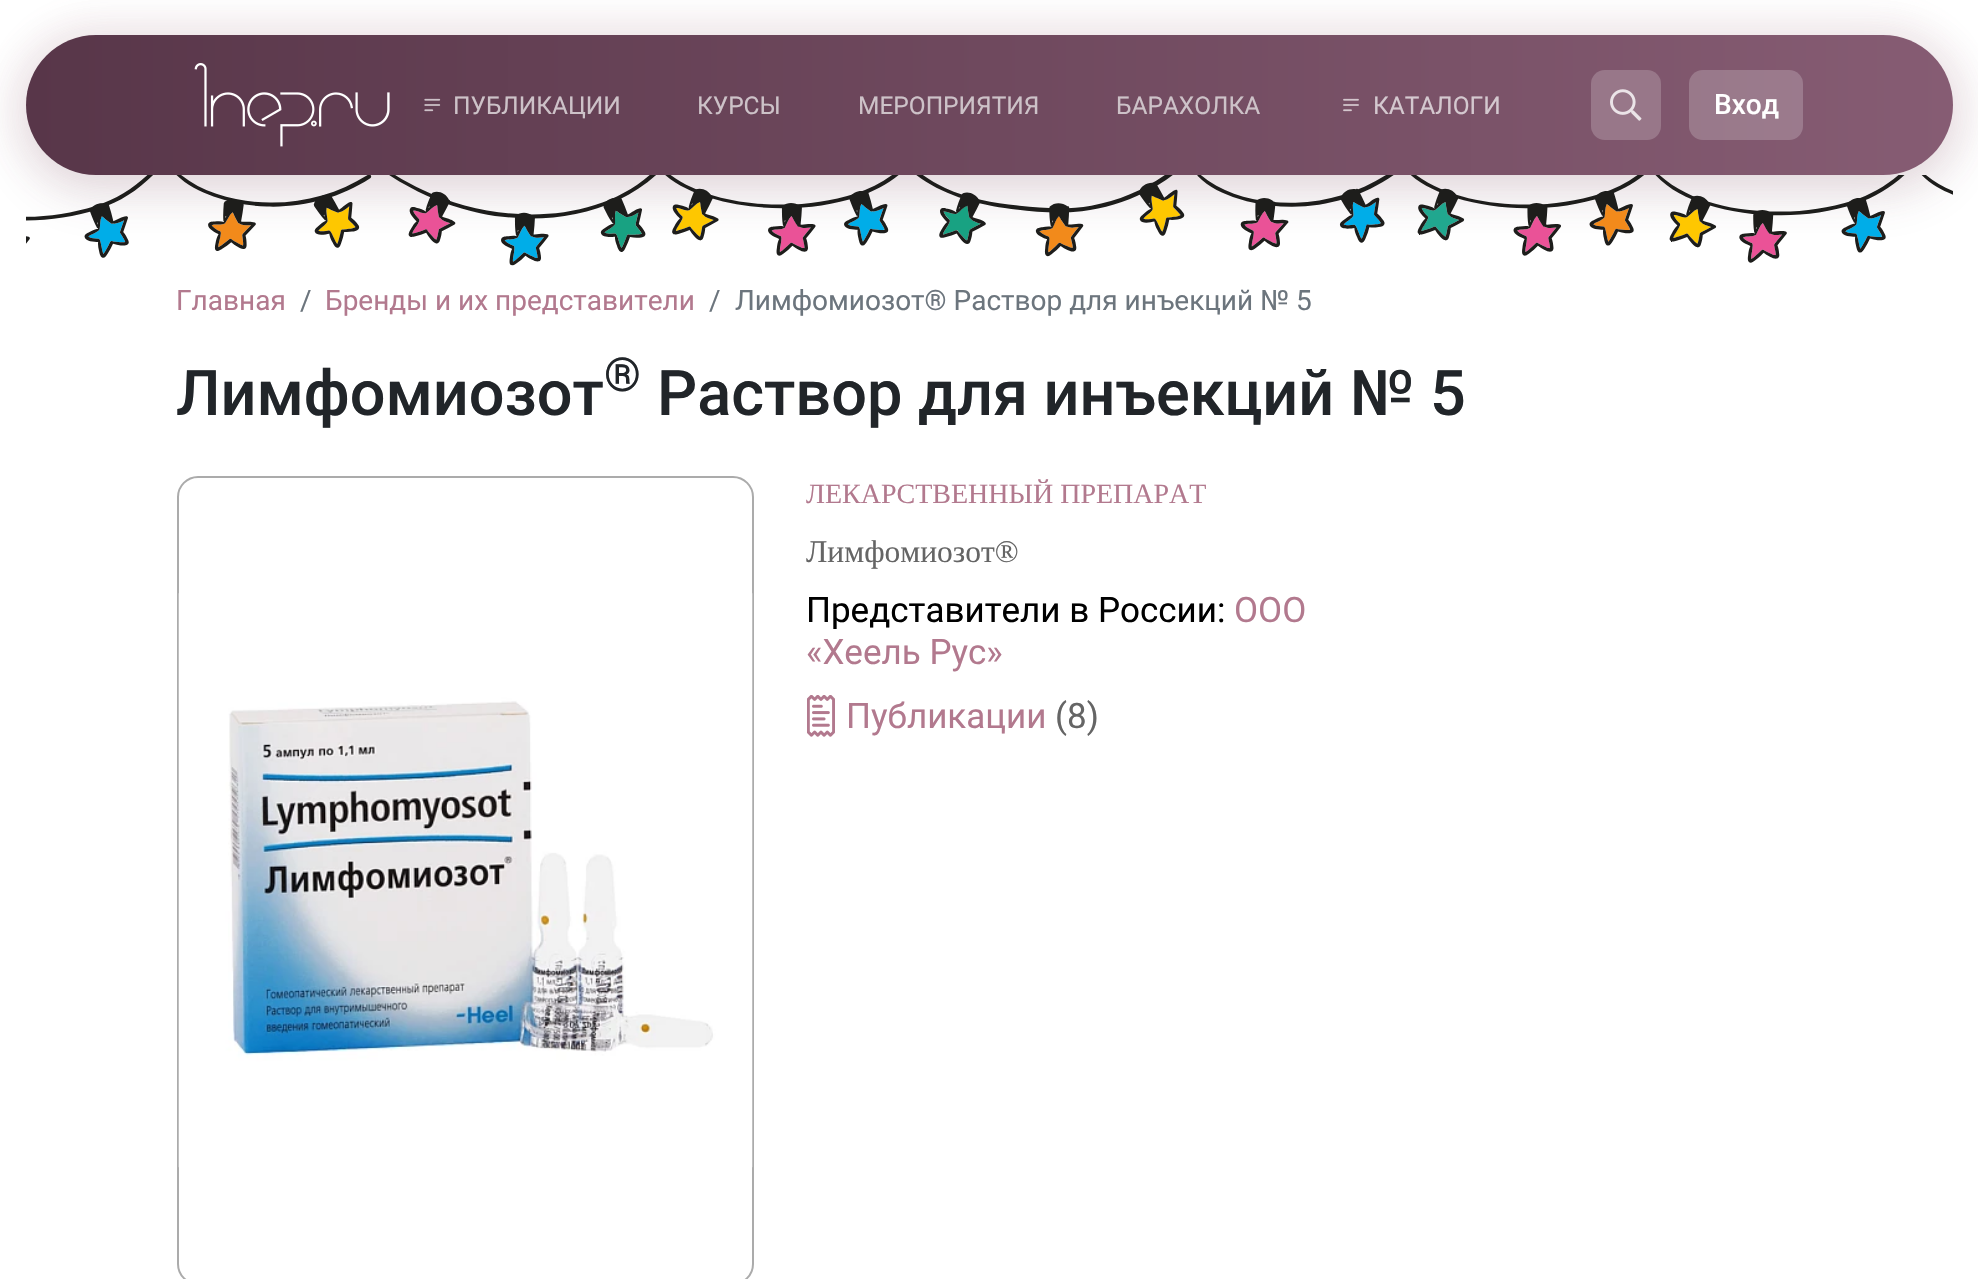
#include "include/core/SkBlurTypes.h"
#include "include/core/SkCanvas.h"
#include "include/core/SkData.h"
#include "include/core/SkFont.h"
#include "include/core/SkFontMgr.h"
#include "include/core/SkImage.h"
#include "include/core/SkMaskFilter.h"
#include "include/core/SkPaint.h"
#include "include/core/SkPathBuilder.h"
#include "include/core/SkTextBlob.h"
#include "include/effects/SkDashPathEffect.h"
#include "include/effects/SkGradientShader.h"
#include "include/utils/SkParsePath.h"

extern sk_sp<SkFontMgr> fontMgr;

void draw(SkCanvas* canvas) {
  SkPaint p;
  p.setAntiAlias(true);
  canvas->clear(SK_ColorWHITE);
  p.setColor(SkColorSetARGB(41, 88, 54, 73));
  p.setMaskFilter(SkMaskFilter::MakeBlur(kNormal_SkBlurStyle, 28));
  canvas->drawRoundRect(SkRect::MakeLTRB(26, 49, 1953, 189), 70, 70, p);
  p.setMaskFilter(nullptr);
  p.setColor(SkColorSetARGB(31, 178, 121, 142));
  p.setMaskFilter(SkMaskFilter::MakeBlur(kNormal_SkBlurStyle, 17.5f));
  canvas->drawRoundRect(SkRect::MakeLTRB(12, 21, 1967, 189), 84, 84, p);
  p.setMaskFilter(nullptr);
  {
    const SkColor colors[] = {SkColorSetRGB(88, 54, 73), SkColorSetRGB(134, 92, 115)};
    const float stops[] = {0, 1};
    const SkPoint ends[] = {{26, 105}, {1953, 105}};
    p.setShader(SkGradientShader::MakeLinear(ends, colors, stops, 2, SkTileMode::kClamp));
    p.setAlpha(255);
  }
  canvas->drawRoundRect(SkRect::MakeLTRB(26, 35, 1953, 175), 70, 70, p);
  canvas->drawImageRect(SkImages::DeferredFromEncodedData(SkData::MakeFromFileName("images/1.png")), SkRect::MakeLTRB(194, 63, 390, 147), SkSamplingOptions());
  canvas->drawImageRect(SkImages::DeferredFromEncodedData(SkData::MakeFromFileName("images/2.png")), SkRect::MakeLTRB(424, 98, 441, 112), SkSamplingOptions());
  canvas->drawImageRect(SkImages::DeferredFromEncodedData(SkData::MakeFromFileName("images/3.png")), SkRect::MakeLTRB(1343, 98, 1359, 112), SkSamplingOptions());
  p.setShader(nullptr);
  p.setColor(SkColorSetRGB(152, 119, 137));
  canvas->drawRoundRect(SkRect::MakeLTRB(1591, 70, 1661, 140), 14, 14, p);
  canvas->drawImageRect(SkImages::DeferredFromEncodedData(SkData::MakeFromFileName("images/4.png")), SkRect::MakeLTRB(1610, 89, 1642, 121), SkSamplingOptions());
  p.setColor(SkColorSetARGB(51, 255, 255, 255));
  canvas->drawRoundRect(SkRect::MakeLTRB(1689, 70, 1803, 140), 14, 14, p);
  canvas->drawImageRect(SkImages::DeferredFromEncodedData(SkData::MakeFromFileName("images/5.png")), SkRect::MakeLTRB(26, 175, 1953, 266), SkSamplingOptions());
  p.setStyle(SkPaint::kStroke_Style);
  p.setStrokeWidth(2);
  p.setColor(SkColorSetRGB(171, 171, 171));
  canvas->drawRoundRect(SkRect::MakeLTRB(178, 477, 753, 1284), 20, 20, p);
  canvas->drawImageRect(SkImages::DeferredFromEncodedData(SkData::MakeFromFileName("images/6.png")), SkRect::MakeLTRB(178, 593, 753, 1168), SkSamplingOptions());
  canvas->drawImageRect(SkImages::DeferredFromEncodedData(SkData::MakeFromFileName("images/7.png")), SkRect::MakeLTRB(807, 695, 835, 737), SkSamplingOptions());
  SkFont font1(fontMgr->matchFamilyStyle("Roboto", SkFontStyle::Normal()), 24.5f);
  font1.setSubpixel(true);
  p.setStyle(SkPaint::kFill_Style);
  p.setColor(SkColorSetRGB(205, 194, 200));
  canvas->drawString("ПУБЛИКАЦИИ", 453, 114, font1, p);
  canvas->drawString("КУРСЫ", 697, 114, font1, p);
  canvas->drawString("МЕРОПРИЯТИЯ", 858, 114, font1, p);
  canvas->drawString("БАРАХОЛКА", 1116, 114, font1, p);
  p.setColor(SkColorSetRGB(212, 200, 207));
  canvas->drawString("КАТАЛОГИ", 1373, 114, font1, p);
  SkFont font2(fontMgr->matchFamilyStyle("Roboto", SkFontStyle(500, SkFontStyle::kNormal_Width, SkFontStyle::kUpright_Slant)), 28);
  font2.setSubpixel(true);
  p.setColor(SK_ColorWHITE);
  canvas->drawString("Вход", 1714, 114, font2, p);
  SkFont font3(fontMgr->matchFamilyStyle("Roboto", SkFontStyle::Normal()), 28);
  font3.setSubpixel(true);
  p.setColor(SkColorSetRGB(178, 121, 142));
  canvas->drawString("Главная", 176, 310, font3, p);
  p.setColor(SkColorSetRGB(108, 117, 125));
  canvas->drawString("/", 300, 310, font3, p);
  p.setColor(SkColorSetRGB(178, 121, 142));
  canvas->drawString("Бренды и их представители", 325, 310, font3, p);
  p.setColor(SkColorSetRGB(108, 117, 125));
  canvas->drawString("/", 709, 310, font3, p);
  canvas->drawString("Лимфомиозот® Раствор для инъекций № 5", 735, 310, font3, p);
  SkFont font4(fontMgr->matchFamilyStyle("Roboto", SkFontStyle(500, SkFontStyle::kNormal_Width, SkFontStyle::kUpright_Slant)), 63);
  font4.setSubpixel(true);
  p.setColor(SkColorSetRGB(33, 37, 41));
  canvas->drawString("Лимфомиозот", 176, 415, font4, p);
  SkFont font5(fontMgr->matchFamilyStyle("Roboto", SkFontStyle(500, SkFontStyle::kNormal_Width, SkFontStyle::kUpright_Slant)), 47);
  font5.setSubpixel(true);
  canvas->drawString("®", 604, 391, font5, p);
  canvas->drawString("Раствор для инъекций № 5", 657, 415, font4, p);
  SkFont font6(fontMgr->matchFamilyStyle("Liberation Serif", SkFontStyle::Normal()), 28);
  font6.setSubpixel(true);
  p.setColor(SkColorSetRGB(178, 121, 142));
  canvas->drawString("ЛЕКАРСТВЕННЫЙ ПРЕПАРАТ", 806, 503, font6, p);
  SkFont font7(fontMgr->matchFamilyStyle("Liberation Serif", SkFontStyle::Normal()), 31.5f);
  font7.setSubpixel(true);
  p.setColor(SkColorSetRGB(101, 101, 101));
  canvas->drawString("Лимфомиозот®", 806, 562, font7, p);
  SkFont font8(fontMgr->matchFamilyStyle("Roboto", SkFontStyle::Normal()), 35);
  font8.setSubpixel(true);
  p.setColor(SK_ColorBLACK);
  canvas->drawString("Представители в России:", 806, 622, font8, p);
  p.setColor(SkColorSetRGB(178, 121, 142));
  canvas->drawString("ООО", 1234, 622, font8, p);
  canvas->drawString("«Хеель Рус»", 806, 664, font8, p);
  canvas->drawString("Публикации", 846, 728, font8, p);
  p.setColor(SkColorSetRGB(101, 101, 101));
  canvas->drawString("(8)", 1055, 728, font8, p);
}
